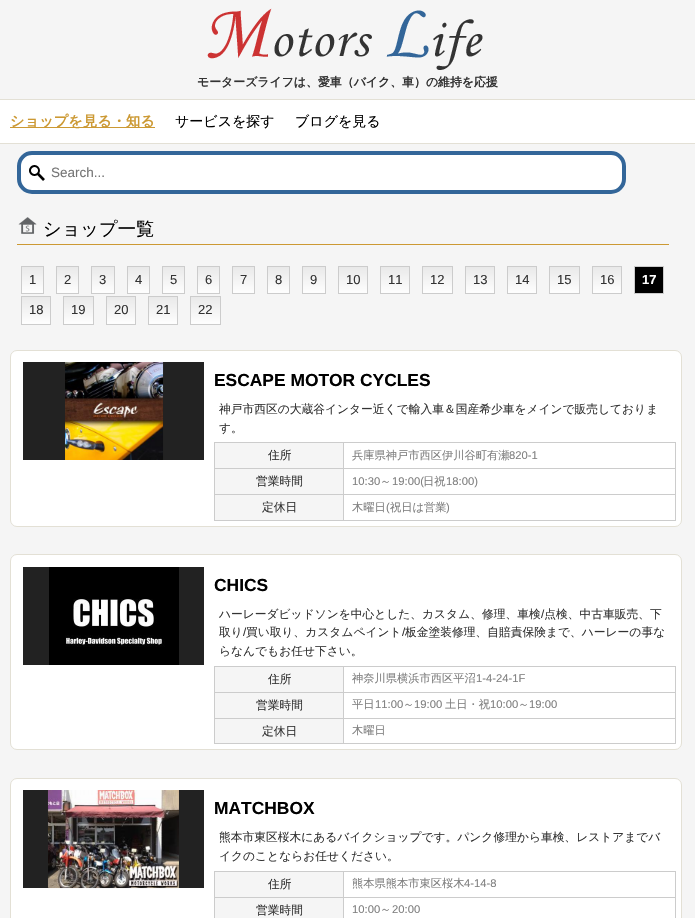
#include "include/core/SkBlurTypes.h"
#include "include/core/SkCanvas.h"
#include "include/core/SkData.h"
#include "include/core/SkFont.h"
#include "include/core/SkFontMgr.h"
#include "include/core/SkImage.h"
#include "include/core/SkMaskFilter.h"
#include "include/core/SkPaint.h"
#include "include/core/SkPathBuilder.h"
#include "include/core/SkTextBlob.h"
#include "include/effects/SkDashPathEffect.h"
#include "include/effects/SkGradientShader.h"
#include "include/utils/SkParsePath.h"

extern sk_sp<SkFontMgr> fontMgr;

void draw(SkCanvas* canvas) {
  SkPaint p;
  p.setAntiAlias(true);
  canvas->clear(SkColorSetRGB(245, 245, 245));
  canvas->drawImageRect(SkImages::DeferredFromEncodedData(SkData::MakeFromFileName("images/1.png")), SkRect::MakeLTRB(207, 8, 483, 70), SkSamplingOptions());
  p.setColor(SK_ColorWHITE);
  canvas->drawRect(SkRect::MakeLTRB(0, 100, 695, 143), p);
  p.setColor(SkColorSetRGB(227, 224, 213));
  canvas->drawRect(SkRect::MakeLTRB(0, 99, 695, 100), p);
  canvas->drawRect(SkRect::MakeLTRB(0, 143, 695, 144), p);
  p.setColor(SkColorSetRGB(204, 153, 51));
  canvas->drawRect(SkRect::MakeLTRB(10, 127, 155, 128), p);
  p.setColor(SK_ColorWHITE);
  canvas->drawRoundRect(SkRect::MakeLTRB(17, 151, 626, 194), 15, 15, p);
  canvas->drawImageRect(SkImages::DeferredFromEncodedData(SkData::MakeFromFileName("images/2.png")), SkRect::MakeLTRB(29, 165, 45, 181), SkSamplingOptions());
  p.setStyle(SkPaint::kStroke_Style);
  p.setStrokeWidth(4);
  p.setColor(SkColorSetRGB(51, 102, 153));
  canvas->drawRoundRect(SkRect::MakeLTRB(19, 153, 624, 192), 13, 13, p);
  canvas->drawImageRect(SkImages::DeferredFromEncodedData(SkData::MakeFromFileName("images/3.png")), SkRect::MakeLTRB(18, 217, 37, 234), SkSamplingOptions());
  p.setStyle(SkPaint::kFill_Style);
  p.setColor(SkColorSetRGB(204, 153, 51));
  canvas->drawRect(SkRect::MakeLTRB(17, 244, 669, 245), p);
  {
    const SkColor colors[] = {SkColorSetRGB(233, 233, 233), SkColorSetRGB(253, 253, 253)};
    const float stops[] = {0, 0.95f};
    const SkPoint ends[] = {{33, 267}, {33, 293}};
    p.setShader(SkGradientShader::MakeLinear(ends, colors, stops, 2, SkTileMode::kClamp));
    p.setAlpha(255);
  }
  canvas->drawRect(SkRect::MakeLTRB(22, 267, 43, 293), p);
  p.setStyle(SkPaint::kStroke_Style);
  p.setStrokeWidth(1);
  p.setShader(nullptr);
  p.setColor(SkColorSetRGB(204, 204, 204));
  canvas->drawRect(SkRect::MakeLTRB(21.5f, 266.5f, 43.5f, 293.5f), p);
  p.setStyle(SkPaint::kFill_Style);
  {
    const SkColor colors[] = {SkColorSetRGB(233, 233, 233), SkColorSetRGB(253, 253, 253)};
    const float stops[] = {0, 0.95f};
    const SkPoint ends[] = {{68, 267}, {68, 293}};
    p.setShader(SkGradientShader::MakeLinear(ends, colors, stops, 2, SkTileMode::kClamp));
    p.setAlpha(255);
  }
  canvas->drawRect(SkRect::MakeLTRB(57, 267, 78, 293), p);
  p.setStyle(SkPaint::kStroke_Style);
  p.setShader(nullptr);
  p.setColor(SkColorSetRGB(204, 204, 204));
  canvas->drawRect(SkRect::MakeLTRB(56.5f, 266.5f, 78.5f, 293.5f), p);
  p.setStyle(SkPaint::kFill_Style);
  {
    const SkColor colors[] = {SkColorSetRGB(233, 233, 233), SkColorSetRGB(253, 253, 253)};
    const float stops[] = {0, 0.95f};
    const SkPoint ends[] = {{103, 267}, {103, 293}};
    p.setShader(SkGradientShader::MakeLinear(ends, colors, stops, 2, SkTileMode::kClamp));
    p.setAlpha(255);
  }
  canvas->drawRect(SkRect::MakeLTRB(92, 267, 114, 293), p);
  p.setStyle(SkPaint::kStroke_Style);
  p.setShader(nullptr);
  p.setColor(SkColorSetRGB(204, 204, 204));
  canvas->drawRect(SkRect::MakeLTRB(91.5f, 266.5f, 114.5f, 293.5f), p);
  p.setStyle(SkPaint::kFill_Style);
  {
    const SkColor colors[] = {SkColorSetRGB(233, 233, 233), SkColorSetRGB(253, 253, 253)};
    const float stops[] = {0, 0.95f};
    const SkPoint ends[] = {{139, 267}, {139, 293}};
    p.setShader(SkGradientShader::MakeLinear(ends, colors, stops, 2, SkTileMode::kClamp));
    p.setAlpha(255);
  }
  canvas->drawRect(SkRect::MakeLTRB(128, 267, 149, 293), p);
  p.setStyle(SkPaint::kStroke_Style);
  p.setShader(nullptr);
  p.setColor(SkColorSetRGB(204, 204, 204));
  canvas->drawRect(SkRect::MakeLTRB(127.5f, 266.5f, 149.5f, 293.5f), p);
  p.setStyle(SkPaint::kFill_Style);
  {
    const SkColor colors[] = {SkColorSetRGB(233, 233, 233), SkColorSetRGB(253, 253, 253)};
    const float stops[] = {0, 0.95f};
    const SkPoint ends[] = {{174, 267}, {174, 293}};
    p.setShader(SkGradientShader::MakeLinear(ends, colors, stops, 2, SkTileMode::kClamp));
    p.setAlpha(255);
  }
  canvas->drawRect(SkRect::MakeLTRB(163, 267, 184, 293), p);
  p.setStyle(SkPaint::kStroke_Style);
  p.setShader(nullptr);
  p.setColor(SkColorSetRGB(204, 204, 204));
  canvas->drawRect(SkRect::MakeLTRB(162.5f, 266.5f, 184.5f, 293.5f), p);
  p.setStyle(SkPaint::kFill_Style);
  {
    const SkColor colors[] = {SkColorSetRGB(233, 233, 233), SkColorSetRGB(253, 253, 253)};
    const float stops[] = {0, 0.95f};
    const SkPoint ends[] = {{209, 267}, {209, 293}};
    p.setShader(SkGradientShader::MakeLinear(ends, colors, stops, 2, SkTileMode::kClamp));
    p.setAlpha(255);
  }
  canvas->drawRect(SkRect::MakeLTRB(198, 267, 219, 293), p);
  p.setStyle(SkPaint::kStroke_Style);
  p.setShader(nullptr);
  p.setColor(SkColorSetRGB(204, 204, 204));
  canvas->drawRect(SkRect::MakeLTRB(197.5f, 266.5f, 219.5f, 293.5f), p);
  p.setStyle(SkPaint::kFill_Style);
  {
    const SkColor colors[] = {SkColorSetRGB(233, 233, 233), SkColorSetRGB(253, 253, 253)};
    const float stops[] = {0, 0.95f};
    const SkPoint ends[] = {{244, 267}, {244, 293}};
    p.setShader(SkGradientShader::MakeLinear(ends, colors, stops, 2, SkTileMode::kClamp));
    p.setAlpha(255);
  }
  canvas->drawRect(SkRect::MakeLTRB(233, 267, 254, 293), p);
  p.setStyle(SkPaint::kStroke_Style);
  p.setShader(nullptr);
  p.setColor(SkColorSetRGB(204, 204, 204));
  canvas->drawRect(SkRect::MakeLTRB(232.5f, 266.5f, 254.5f, 293.5f), p);
  p.setStyle(SkPaint::kFill_Style);
  {
    const SkColor colors[] = {SkColorSetRGB(233, 233, 233), SkColorSetRGB(253, 253, 253)};
    const float stops[] = {0, 0.95f};
    const SkPoint ends[] = {{279, 267}, {279, 293}};
    p.setShader(SkGradientShader::MakeLinear(ends, colors, stops, 2, SkTileMode::kClamp));
    p.setAlpha(255);
  }
  canvas->drawRect(SkRect::MakeLTRB(268, 267, 289, 293), p);
  p.setStyle(SkPaint::kStroke_Style);
  p.setShader(nullptr);
  p.setColor(SkColorSetRGB(204, 204, 204));
  canvas->drawRect(SkRect::MakeLTRB(267.5f, 266.5f, 289.5f, 293.5f), p);
  p.setStyle(SkPaint::kFill_Style);
  {
    const SkColor colors[] = {SkColorSetRGB(233, 233, 233), SkColorSetRGB(253, 253, 253)};
    const float stops[] = {0, 0.95f};
    const SkPoint ends[] = {{314, 267}, {314, 293}};
    p.setShader(SkGradientShader::MakeLinear(ends, colors, stops, 2, SkTileMode::kClamp));
    p.setAlpha(255);
  }
  canvas->drawRect(SkRect::MakeLTRB(303, 267, 325, 293), p);
  p.setStyle(SkPaint::kStroke_Style);
  p.setShader(nullptr);
  p.setColor(SkColorSetRGB(204, 204, 204));
  canvas->drawRect(SkRect::MakeLTRB(302.5f, 266.5f, 325.5f, 293.5f), p);
  p.setStyle(SkPaint::kFill_Style);
  {
    const SkColor colors[] = {SkColorSetRGB(233, 233, 233), SkColorSetRGB(253, 253, 253)};
    const float stops[] = {0, 0.95f};
    const SkPoint ends[] = {{353, 267}, {353, 293}};
    p.setShader(SkGradientShader::MakeLinear(ends, colors, stops, 2, SkTileMode::kClamp));
    p.setAlpha(255);
  }
  canvas->drawRect(SkRect::MakeLTRB(339, 267, 367, 293), p);
  p.setStyle(SkPaint::kStroke_Style);
  p.setShader(nullptr);
  p.setColor(SkColorSetRGB(204, 204, 204));
  canvas->drawRect(SkRect::MakeLTRB(338.5f, 266.5f, 367.5f, 293.5f), p);
  p.setStyle(SkPaint::kFill_Style);
  {
    const SkColor colors[] = {SkColorSetRGB(233, 233, 233), SkColorSetRGB(253, 253, 253)};
    const float stops[] = {0, 0.95f};
    const SkPoint ends[] = {{395, 267}, {395, 293}};
    p.setShader(SkGradientShader::MakeLinear(ends, colors, stops, 2, SkTileMode::kClamp));
    p.setAlpha(255);
  }
  canvas->drawRect(SkRect::MakeLTRB(381, 267, 409, 293), p);
  p.setStyle(SkPaint::kStroke_Style);
  p.setShader(nullptr);
  p.setColor(SkColorSetRGB(204, 204, 204));
  canvas->drawRect(SkRect::MakeLTRB(380.5f, 266.5f, 409.5f, 293.5f), p);
  p.setStyle(SkPaint::kFill_Style);
  {
    const SkColor colors[] = {SkColorSetRGB(233, 233, 233), SkColorSetRGB(253, 253, 253)};
    const float stops[] = {0, 0.95f};
    const SkPoint ends[] = {{438, 267}, {438, 293}};
    p.setShader(SkGradientShader::MakeLinear(ends, colors, stops, 2, SkTileMode::kClamp));
    p.setAlpha(255);
  }
  canvas->drawRect(SkRect::MakeLTRB(423, 267, 452, 293), p);
  p.setStyle(SkPaint::kStroke_Style);
  p.setShader(nullptr);
  p.setColor(SkColorSetRGB(204, 204, 204));
  canvas->drawRect(SkRect::MakeLTRB(422.5f, 266.5f, 452.5f, 293.5f), p);
  p.setStyle(SkPaint::kFill_Style);
  {
    const SkColor colors[] = {SkColorSetRGB(233, 233, 233), SkColorSetRGB(253, 253, 253)};
    const float stops[] = {0, 0.95f};
    const SkPoint ends[] = {{480, 267}, {480, 293}};
    p.setShader(SkGradientShader::MakeLinear(ends, colors, stops, 2, SkTileMode::kClamp));
    p.setAlpha(255);
  }
  canvas->drawRect(SkRect::MakeLTRB(466, 267, 494, 293), p);
  p.setStyle(SkPaint::kStroke_Style);
  p.setShader(nullptr);
  p.setColor(SkColorSetRGB(204, 204, 204));
  canvas->drawRect(SkRect::MakeLTRB(465.5f, 266.5f, 494.5f, 293.5f), p);
  p.setStyle(SkPaint::kFill_Style);
  {
    const SkColor colors[] = {SkColorSetRGB(233, 233, 233), SkColorSetRGB(253, 253, 253)};
    const float stops[] = {0, 0.95f};
    const SkPoint ends[] = {{522, 267}, {522, 293}};
    p.setShader(SkGradientShader::MakeLinear(ends, colors, stops, 2, SkTileMode::kClamp));
    p.setAlpha(255);
  }
  canvas->drawRect(SkRect::MakeLTRB(508, 267, 536, 293), p);
  p.setStyle(SkPaint::kStroke_Style);
  p.setShader(nullptr);
  p.setColor(SkColorSetRGB(204, 204, 204));
  canvas->drawRect(SkRect::MakeLTRB(507.5f, 266.5f, 536.5f, 293.5f), p);
  p.setStyle(SkPaint::kFill_Style);
  {
    const SkColor colors[] = {SkColorSetRGB(233, 233, 233), SkColorSetRGB(253, 253, 253)};
    const float stops[] = {0, 0.95f};
    const SkPoint ends[] = {{565, 267}, {565, 293}};
    p.setShader(SkGradientShader::MakeLinear(ends, colors, stops, 2, SkTileMode::kClamp));
    p.setAlpha(255);
  }
  canvas->drawRect(SkRect::MakeLTRB(550, 267, 579, 293), p);
  p.setStyle(SkPaint::kStroke_Style);
  p.setShader(nullptr);
  p.setColor(SkColorSetRGB(204, 204, 204));
  canvas->drawRect(SkRect::MakeLTRB(549.5f, 266.5f, 579.5f, 293.5f), p);
  p.setStyle(SkPaint::kFill_Style);
  {
    const SkColor colors[] = {SkColorSetRGB(233, 233, 233), SkColorSetRGB(253, 253, 253)};
    const float stops[] = {0, 0.95f};
    const SkPoint ends[] = {{607, 267}, {607, 293}};
    p.setShader(SkGradientShader::MakeLinear(ends, colors, stops, 2, SkTileMode::kClamp));
    p.setAlpha(255);
  }
  canvas->drawRect(SkRect::MakeLTRB(593, 267, 621, 293), p);
  p.setStyle(SkPaint::kStroke_Style);
  p.setShader(nullptr);
  p.setColor(SkColorSetRGB(204, 204, 204));
  canvas->drawRect(SkRect::MakeLTRB(592.5f, 266.5f, 621.5f, 293.5f), p);
  p.setStyle(SkPaint::kFill_Style);
  p.setColor(SK_ColorBLACK);
  canvas->drawRect(SkRect::MakeLTRB(634.5f, 266.5f, 663.5f, 293.5f), p);
  p.setStyle(SkPaint::kStroke_Style);
  p.setColor(SkColorSetRGB(204, 204, 204));
  canvas->drawRect(SkRect::MakeLTRB(634.5f, 266.5f, 663.5f, 293.5f), p);
  p.setStyle(SkPaint::kFill_Style);
  {
    const SkColor colors[] = {SkColorSetRGB(233, 233, 233), SkColorSetRGB(253, 253, 253)};
    const float stops[] = {0, 0.95f};
    const SkPoint ends[] = {{36, 297}, {36, 324}};
    p.setShader(SkGradientShader::MakeLinear(ends, colors, stops, 2, SkTileMode::kClamp));
    p.setAlpha(255);
  }
  canvas->drawRect(SkRect::MakeLTRB(22, 297, 50, 324), p);
  p.setStyle(SkPaint::kStroke_Style);
  p.setShader(nullptr);
  p.setColor(SkColorSetRGB(204, 204, 204));
  canvas->drawRect(SkRect::MakeLTRB(21.5f, 296.5f, 50.5f, 324.5f), p);
  p.setStyle(SkPaint::kFill_Style);
  {
    const SkColor colors[] = {SkColorSetRGB(233, 233, 233), SkColorSetRGB(253, 253, 253)};
    const float stops[] = {0, 0.95f};
    const SkPoint ends[] = {{79, 297}, {79, 324}};
    p.setShader(SkGradientShader::MakeLinear(ends, colors, stops, 2, SkTileMode::kClamp));
    p.setAlpha(255);
  }
  canvas->drawRect(SkRect::MakeLTRB(64, 297, 93, 324), p);
  p.setStyle(SkPaint::kStroke_Style);
  p.setShader(nullptr);
  p.setColor(SkColorSetRGB(204, 204, 204));
  canvas->drawRect(SkRect::MakeLTRB(63.5f, 296.5f, 93.5f, 324.5f), p);
  p.setStyle(SkPaint::kFill_Style);
  {
    const SkColor colors[] = {SkColorSetRGB(233, 233, 233), SkColorSetRGB(253, 253, 253)};
    const float stops[] = {0, 0.95f};
    const SkPoint ends[] = {{121, 297}, {121, 324}};
    p.setShader(SkGradientShader::MakeLinear(ends, colors, stops, 2, SkTileMode::kClamp));
    p.setAlpha(255);
  }
  canvas->drawRect(SkRect::MakeLTRB(107, 297, 135, 324), p);
  p.setStyle(SkPaint::kStroke_Style);
  p.setShader(nullptr);
  p.setColor(SkColorSetRGB(204, 204, 204));
  canvas->drawRect(SkRect::MakeLTRB(106.5f, 296.5f, 135.5f, 324.5f), p);
  p.setStyle(SkPaint::kFill_Style);
  {
    const SkColor colors[] = {SkColorSetRGB(233, 233, 233), SkColorSetRGB(253, 253, 253)};
    const float stops[] = {0, 0.95f};
    const SkPoint ends[] = {{163, 297}, {163, 324}};
    p.setShader(SkGradientShader::MakeLinear(ends, colors, stops, 2, SkTileMode::kClamp));
    p.setAlpha(255);
  }
  canvas->drawRect(SkRect::MakeLTRB(149, 297, 177, 324), p);
  p.setStyle(SkPaint::kStroke_Style);
  p.setShader(nullptr);
  p.setColor(SkColorSetRGB(204, 204, 204));
  canvas->drawRect(SkRect::MakeLTRB(148.5f, 296.5f, 177.5f, 324.5f), p);
  p.setStyle(SkPaint::kFill_Style);
  {
    const SkColor colors[] = {SkColorSetRGB(233, 233, 233), SkColorSetRGB(253, 253, 253)};
    const float stops[] = {0, 0.95f};
    const SkPoint ends[] = {{206, 297}, {206, 324}};
    p.setShader(SkGradientShader::MakeLinear(ends, colors, stops, 2, SkTileMode::kClamp));
    p.setAlpha(255);
  }
  canvas->drawRect(SkRect::MakeLTRB(191, 297, 220, 324), p);
  p.setStyle(SkPaint::kStroke_Style);
  p.setShader(nullptr);
  p.setColor(SkColorSetRGB(204, 204, 204));
  canvas->drawRect(SkRect::MakeLTRB(190.5f, 296.5f, 220.5f, 324.5f), p);
  p.setStyle(SkPaint::kFill_Style);
  p.setColor(SK_ColorWHITE);
  canvas->drawRoundRect(SkRect::MakeLTRB(10.5f, 350.5f, 681.5f, 526.5f), 6.5f, 6.5f, p);
  p.setStyle(SkPaint::kStroke_Style);
  p.setColor(SkColorSetRGB(227, 224, 213));
  canvas->drawRoundRect(SkRect::MakeLTRB(10.5f, 350.5f, 681.5f, 526.5f), 6.5f, 6.5f, p);
  p.setStyle(SkPaint::kFill_Style);
  p.setColor(SkColorSetRGB(34, 34, 34));
  canvas->drawRect(SkRect::MakeLTRB(23, 362, 204, 460), p);
  canvas->drawImageRect(SkImages::DeferredFromEncodedData(SkData::MakeFromFileName("images/4.png")), SkRect::MakeLTRB(65, 362, 164, 460), SkSamplingOptions());
  p.setColor(SkColorSetRGB(204, 204, 204));
  canvas->drawRect(SkRect::MakeLTRB(214, 442, 676, 443), p);
  canvas->drawRect(SkRect::MakeLTRB(214, 442, 215, 521), p);
  p.setColor(SkColorSetRGB(245, 245, 245));
  canvas->drawRect(SkRect::MakeLTRB(215, 443, 343, 468), p);
  p.setColor(SkColorSetRGB(204, 204, 204));
  canvas->drawRect(SkRect::MakeLTRB(675, 442, 676, 521), p);
  canvas->drawRect(SkRect::MakeLTRB(343, 520, 676, 521), p);
  canvas->drawRect(SkRect::MakeLTRB(343, 494, 344, 521), p);
  canvas->drawRect(SkRect::MakeLTRB(343, 494, 676, 495), p);
  canvas->drawRect(SkRect::MakeLTRB(343, 468, 344, 495), p);
  canvas->drawRect(SkRect::MakeLTRB(343, 468, 676, 469), p);
  canvas->drawRect(SkRect::MakeLTRB(343, 442, 344, 469), p);
  canvas->drawRect(SkRect::MakeLTRB(214, 468, 344, 469), p);
  p.setColor(SkColorSetRGB(245, 245, 245));
  canvas->drawRect(SkRect::MakeLTRB(215, 469, 343, 494), p);
  p.setColor(SkColorSetRGB(204, 204, 204));
  canvas->drawRect(SkRect::MakeLTRB(214, 494, 344, 495), p);
  p.setColor(SkColorSetRGB(245, 245, 245));
  canvas->drawRect(SkRect::MakeLTRB(215, 495, 343, 520), p);
  p.setColor(SkColorSetRGB(204, 204, 204));
  canvas->drawRect(SkRect::MakeLTRB(214, 520, 344, 521), p);
  p.setColor(SK_ColorWHITE);
  canvas->drawRoundRect(SkRect::MakeLTRB(10.5f, 554.5f, 681.5f, 749.5f), 6.5f, 6.5f, p);
  p.setStyle(SkPaint::kStroke_Style);
  p.setColor(SkColorSetRGB(227, 224, 213));
  canvas->drawRoundRect(SkRect::MakeLTRB(10.5f, 554.5f, 681.5f, 749.5f), 6.5f, 6.5f, p);
  p.setStyle(SkPaint::kFill_Style);
  p.setColor(SkColorSetRGB(34, 34, 34));
  canvas->drawRect(SkRect::MakeLTRB(23, 567, 204, 665), p);
  canvas->drawImageRect(SkImages::DeferredFromEncodedData(SkData::MakeFromFileName("images/5.png")), SkRect::MakeLTRB(49, 567, 179, 665), SkSamplingOptions());
  p.setColor(SkColorSetRGB(204, 204, 204));
  canvas->drawRect(SkRect::MakeLTRB(214, 666, 676, 667), p);
  canvas->drawRect(SkRect::MakeLTRB(214, 666, 215, 744), p);
  p.setColor(SkColorSetRGB(245, 245, 245));
  canvas->drawRect(SkRect::MakeLTRB(215, 667, 343, 692), p);
  p.setColor(SkColorSetRGB(204, 204, 204));
  canvas->drawRect(SkRect::MakeLTRB(675, 666, 676, 744), p);
  canvas->drawRect(SkRect::MakeLTRB(343, 743, 676, 744), p);
  canvas->drawRect(SkRect::MakeLTRB(343, 718, 344, 744), p);
  canvas->drawRect(SkRect::MakeLTRB(343, 718, 676, 719), p);
  canvas->drawRect(SkRect::MakeLTRB(343, 692, 344, 719), p);
  canvas->drawRect(SkRect::MakeLTRB(343, 692, 676, 693), p);
  canvas->drawRect(SkRect::MakeLTRB(343, 666, 344, 693), p);
  canvas->drawRect(SkRect::MakeLTRB(214, 692, 344, 693), p);
  p.setColor(SkColorSetRGB(245, 245, 245));
  canvas->drawRect(SkRect::MakeLTRB(215, 693, 343, 718), p);
  p.setColor(SkColorSetRGB(204, 204, 204));
  canvas->drawRect(SkRect::MakeLTRB(214, 718, 344, 719), p);
  p.setColor(SkColorSetRGB(245, 245, 245));
  canvas->drawRect(SkRect::MakeLTRB(215, 719, 343, 743), p);
  p.setColor(SkColorSetRGB(204, 204, 204));
  canvas->drawRect(SkRect::MakeLTRB(214, 743, 344, 744), p);
  p.setColor(SK_ColorWHITE);
  canvas->drawRoundRect(SkRect::MakeLTRB(10.5f, 778.5f, 681.5f, 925.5f), 6.5f, 6.5f, p);
  p.setStyle(SkPaint::kStroke_Style);
  p.setColor(SkColorSetRGB(227, 224, 213));
  canvas->drawRoundRect(SkRect::MakeLTRB(10.5f, 778.5f, 681.5f, 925.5f), 6.5f, 6.5f, p);
  p.setStyle(SkPaint::kFill_Style);
  p.setColor(SkColorSetRGB(34, 34, 34));
  canvas->drawRect(SkRect::MakeLTRB(23, 790, 204, 888), p);
  canvas->drawImageRect(SkImages::DeferredFromEncodedData(SkData::MakeFromFileName("images/6.png")), SkRect::MakeLTRB(47, 790, 179, 889), SkSamplingOptions());
  p.setColor(SkColorSetRGB(204, 204, 204));
  canvas->drawRect(SkRect::MakeLTRB(214, 871, 676, 872), p);
  canvas->drawRect(SkRect::MakeLTRB(214, 871, 215, 918), p);
  p.setColor(SkColorSetRGB(245, 245, 245));
  canvas->drawRect(SkRect::MakeLTRB(215, 872, 343, 897), p);
  p.setColor(SkColorSetRGB(204, 204, 204));
  canvas->drawRect(SkRect::MakeLTRB(343, 897, 344, 918), p);
  canvas->drawRect(SkRect::MakeLTRB(675, 871, 676, 918), p);
  canvas->drawRect(SkRect::MakeLTRB(343, 897, 676, 898), p);
  canvas->drawRect(SkRect::MakeLTRB(343, 871, 344, 898), p);
  canvas->drawRect(SkRect::MakeLTRB(214, 897, 344, 898), p);
  p.setColor(SkColorSetRGB(245, 245, 245));
  canvas->drawRect(SkRect::MakeLTRB(215, 898, 343, 918), p);
  SkFont font1(fontMgr->matchFamilyStyle("WenQuanYi Zen Hei", SkFontStyle::Bold()), 11.9f);
  font1.setSubpixel(true);
  p.setColor(SkColorSetRGB(51, 51, 51));
  canvas->drawString("モーターズライフは、愛車（バイク、車）の維持を応援", 197, 86, font1, p);
  SkFont font2(fontMgr->matchFamilyStyle("WenQuanYi Zen Hei", SkFontStyle::Bold()), 14.25f);
  font2.setSubpixel(true);
  p.setColor(SkColorSetRGB(204, 153, 51));
  canvas->drawString("ショップを見る・知る", 10, 126, font2, p);
  SkFont font3(fontMgr->matchFamilyStyle("WenQuanYi Zen Hei", SkFontStyle(500, SkFontStyle::kNormal_Width, SkFontStyle::kUpright_Slant)), 14);
  font3.setSubpixel(true);
  p.setColor(SK_ColorBLACK);
  canvas->drawString("サービスを探す", 175, 126, font3, p);
  canvas->drawString("ブログを見る", 295, 126, font3, p);
  SkFont font4(fontMgr->matchFamilyStyle("Liberation Sans", SkFontStyle::Normal()), 13.5f);
  font4.setSubpixel(true);
  p.setColor(SkColorSetRGB(117, 117, 117));
  canvas->drawString("Search...", 51, 177, font4, p);
  SkFont font5(fontMgr->matchFamilyStyle("WenQuanYi Zen Hei", SkFontStyle(500, SkFontStyle::kNormal_Width, SkFontStyle::kUpright_Slant)), 18.25f);
  font5.setSubpixel(true);
  p.setColor(SK_ColorBLACK);
  canvas->drawString("ショップ一覧", 43, 235, font5, p);
  SkFont font6(fontMgr->matchFamilyStyle("Liberation Sans", SkFontStyle::Normal()), 13);
  font6.setSubpixel(true);
  p.setColor(SkColorSetRGB(51, 51, 51));
  canvas->drawString("1", 29, 284, font6, p);
  canvas->drawString("2", 64, 284, font6, p);
  canvas->drawString("3", 99, 284, font6, p);
  canvas->drawString("4", 135, 284, font6, p);
  canvas->drawString("5", 170, 284, font6, p);
  canvas->drawString("6", 205, 284, font6, p);
  canvas->drawString("7", 240, 284, font6, p);
  canvas->drawString("8", 275, 284, font6, p);
  canvas->drawString("9", 310, 284, font6, p);
  canvas->drawString("10", 346, 284, font6, p);
  canvas->drawString("11", 388, 284, font6, p);
  canvas->drawString("12", 430, 284, font6, p);
  canvas->drawString("13", 473, 284, font6, p);
  canvas->drawString("14", 515, 284, font6, p);
  canvas->drawString("15", 557, 284, font6, p);
  canvas->drawString("16", 600, 284, font6, p);
  SkFont font7(fontMgr->matchFamilyStyle("Liberation Sans", SkFontStyle::Bold()), 13);
  font7.setSubpixel(true);
  p.setColor(SK_ColorWHITE);
  canvas->drawString("17", 642, 284, font7, p);
  p.setColor(SkColorSetRGB(51, 51, 51));
  canvas->drawString("18", 29, 314, font6, p);
  canvas->drawString("19", 71, 314, font6, p);
  canvas->drawString("20", 114, 314, font6, p);
  canvas->drawString("21", 156, 314, font6, p);
  canvas->drawString("22", 198, 314, font6, p);
  SkFont font8(fontMgr->matchFamilyStyle("Liberation Sans", SkFontStyle::Bold()), 17.4f);
  font8.setSubpixel(true);
  p.setColor(SK_ColorBLACK);
  canvas->drawString("ESCAPE MOTOR CYCLES", 214, 386, font8, p);
  SkFont font9(fontMgr->matchFamilyStyle("WenQuanYi Zen Hei", SkFontStyle(500, SkFontStyle::kNormal_Width, SkFontStyle::kUpright_Slant)), 11.75f);
  font9.setSubpixel(true);
  p.setColor(SkColorSetRGB(51, 51, 51));
  canvas->drawString("神戸市西区の大蔵谷インター近くで輸入車＆国産希少車をメインで販売しておりま", 219, 413, font9, p);
  canvas->drawString("す。", 219, 432, font9, p);
  canvas->drawString("住所", 268, 459, font9, p);
  SkFont font10(fontMgr->matchFamilyStyle("WenQuanYi Zen Hei", SkFontStyle(500, SkFontStyle::kNormal_Width, SkFontStyle::kUpright_Slant)), 11.25f);
  font10.setSubpixel(true);
  p.setColor(SkColorSetRGB(128, 128, 128));
  canvas->drawString("兵庫県神戸市西区伊川谷町有瀬", 352, 459, font10, p);
  SkFont font11(fontMgr->matchFamilyStyle("Liberation Sans", SkFontStyle::Normal()), 11.25f);
  font11.setSubpixel(true);
  canvas->drawString("820-1", 509, 459, font11, p);
  p.setColor(SkColorSetRGB(51, 51, 51));
  canvas->drawString("営業時間", 256, 485, font9, p);
  p.setColor(SkColorSetRGB(128, 128, 128));
  canvas->drawString("10:30", 352, 485, font11, p);
  canvas->drawString("～", 380, 485, font10, p);
  canvas->drawString("19:00(", 392, 485, font11, p);
  canvas->drawString("日祝", 423, 485, font10, p);
  canvas->drawString("18:00)", 446, 485, font11, p);
  p.setColor(SkColorSetRGB(51, 51, 51));
  canvas->drawString("定休日", 262, 511, font9, p);
  p.setColor(SkColorSetRGB(128, 128, 128));
  canvas->drawString("木曜日", 352, 511, font10, p);
  canvas->drawString("(", 386, 511, font11, p);
  canvas->drawString("祝日は営業", 390, 511, font10, p);
  canvas->drawString(")", 446, 511, font11, p);
  p.setColor(SK_ColorBLACK);
  canvas->drawString("CHICS", 214, 591, font8, p);
  p.setColor(SkColorSetRGB(51, 51, 51));
  canvas->drawString("ハーレーダビッドソンを中心とした、カスタム、修理、車検 点検、中古車販売、下", 219, 618, font9, p);
  SkFont font12(fontMgr->matchFamilyStyle("Liberation Sans", SkFontStyle::Normal()), 11.75f);
  font12.setSubpixel(true);
  canvas->drawString("/", 541, 618, font12, p);
  canvas->drawString("取り", 219, 636, font9, p);
  canvas->drawString("/", 243, 636, font12, p);
  canvas->drawString("買い取り、カスタムペイント", 246, 636, font9, p);
  canvas->drawString("/", 402, 636, font12, p);
  canvas->drawString("板金塗装修理、自賠責保険まで、ハーレーの事な", 405, 636, font9, p);
  canvas->drawString("らなんでもお任せ下さい。", 219, 655, font9, p);
  canvas->drawString("住所", 268, 683, font9, p);
  p.setColor(SkColorSetRGB(128, 128, 128));
  canvas->drawString("神奈川県横浜市西区平沼", 352, 682, font10, p);
  canvas->drawString("1-4-24-1F", 476, 682, font11, p);
  p.setColor(SkColorSetRGB(51, 51, 51));
  canvas->drawString("営業時間", 256, 709, font9, p);
  p.setColor(SkColorSetRGB(128, 128, 128));
  canvas->drawString("平日", 352, 708, font10, p);
  canvas->drawString("11:00", 375, 708, font11, p);
  canvas->drawString("～", 403, 708, font10, p);
  canvas->drawString("19:00", 414, 708, font11, p);
  canvas->drawString("土日・祝", 445, 708, font10, p);
  canvas->drawString("10:00", 490, 708, font11, p);
  canvas->drawString("～", 518, 708, font10, p);
  canvas->drawString("19:00", 529, 708, font11, p);
  p.setColor(SkColorSetRGB(51, 51, 51));
  canvas->drawString("定休日", 262, 735, font9, p);
  p.setColor(SkColorSetRGB(128, 128, 128));
  canvas->drawString("木曜日", 352, 734, font10, p);
  p.setColor(SK_ColorBLACK);
  canvas->drawString("MATCHBOX", 214, 814, font8, p);
  p.setColor(SkColorSetRGB(51, 51, 51));
  canvas->drawString("熊本市東区桜木にあるバイクショップです。パンク修理から車検、レストアまでバ", 219, 841, font9, p);
  canvas->drawString("イクのことならお任せください。", 219, 860, font9, p);
  canvas->drawString("住所", 268, 888, font9, p);
  p.setColor(SkColorSetRGB(128, 128, 128));
  canvas->drawString("熊本県熊本市東区桜木", 352, 887, font10, p);
  canvas->drawString("4-14-8", 464, 887, font11, p);
  p.setColor(SkColorSetRGB(51, 51, 51));
  canvas->drawString("営業時間", 256, 914, font9, p);
  p.setColor(SkColorSetRGB(128, 128, 128));
  canvas->drawString("10:00", 352, 913, font11, p);
  canvas->drawString("～", 380, 913, font10, p);
  canvas->drawString("20:00", 392, 913, font11, p);
}
